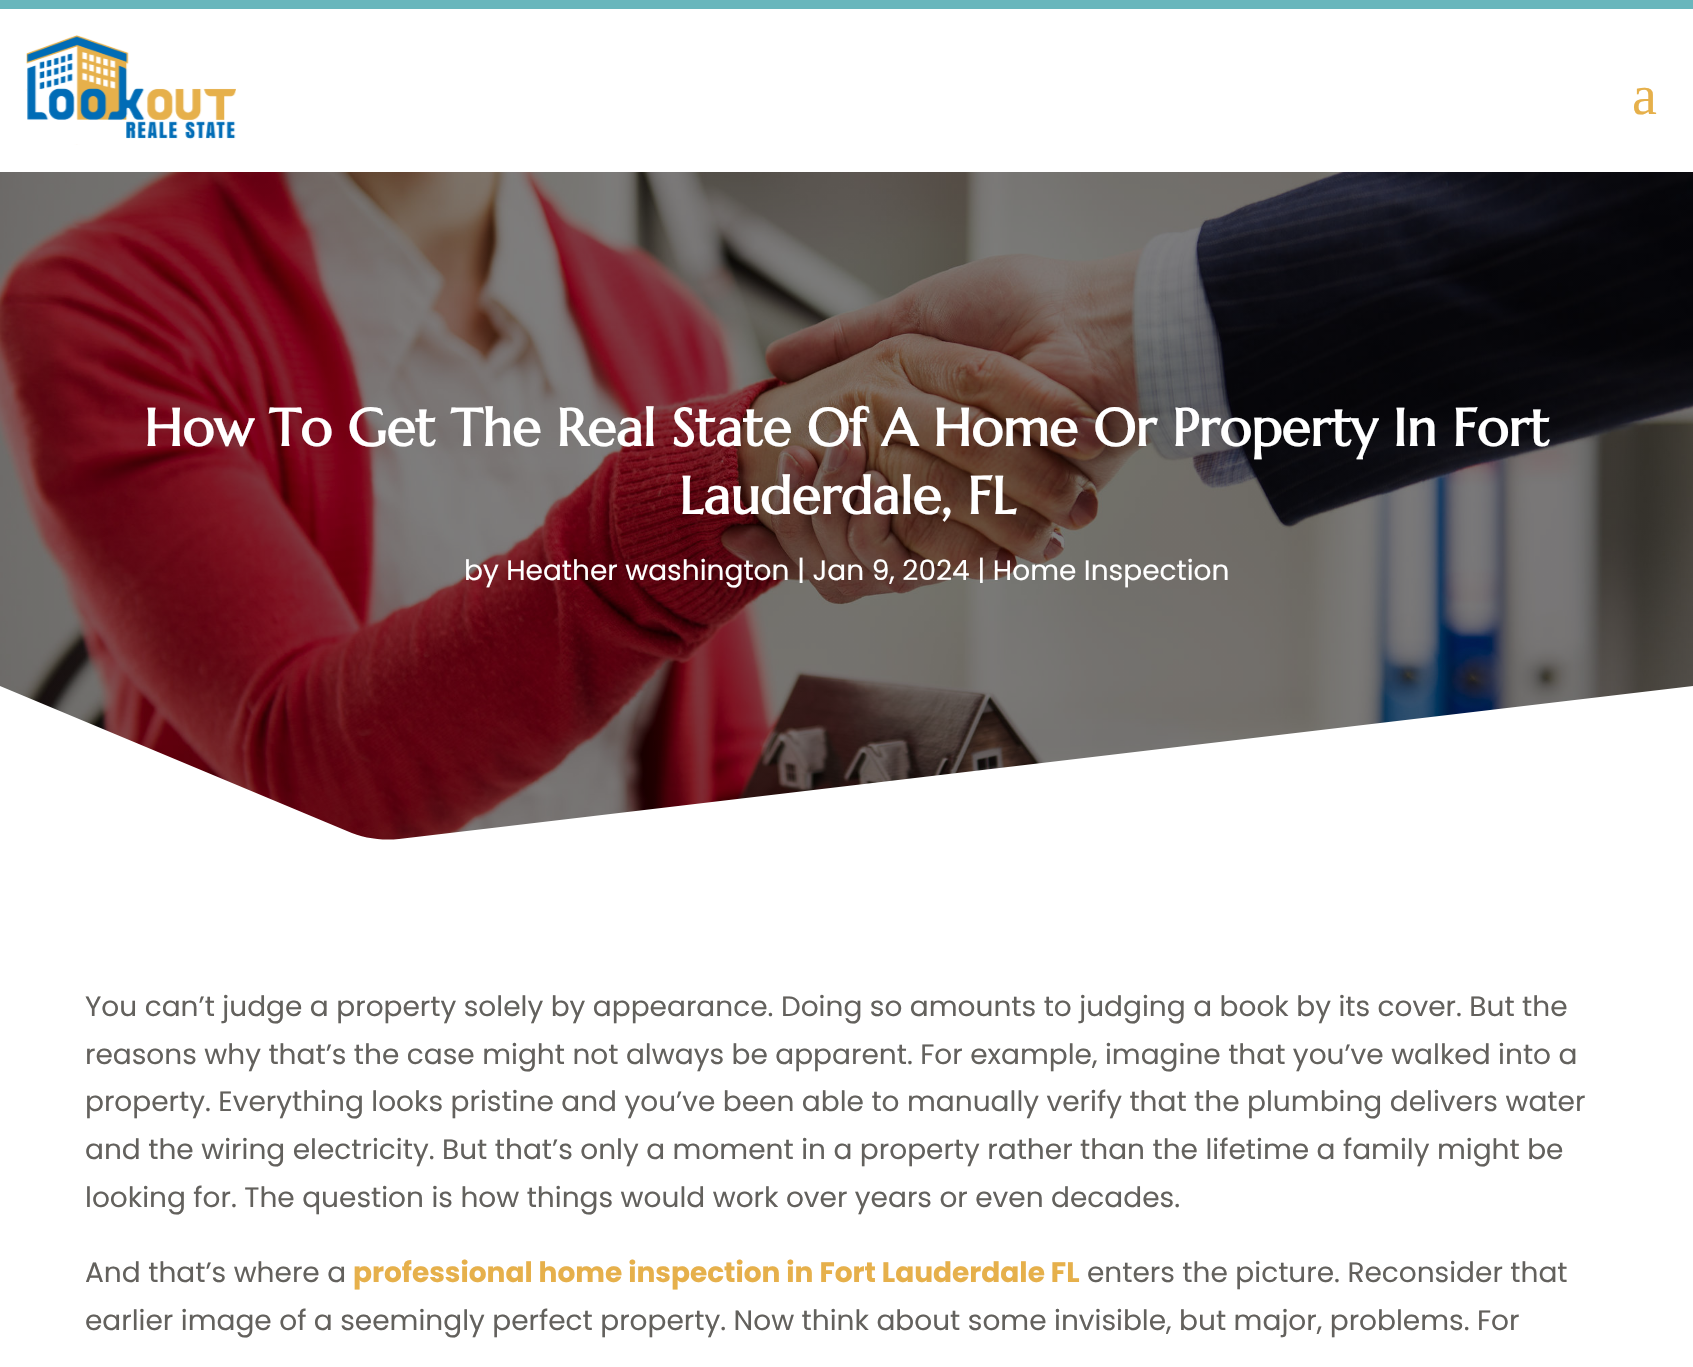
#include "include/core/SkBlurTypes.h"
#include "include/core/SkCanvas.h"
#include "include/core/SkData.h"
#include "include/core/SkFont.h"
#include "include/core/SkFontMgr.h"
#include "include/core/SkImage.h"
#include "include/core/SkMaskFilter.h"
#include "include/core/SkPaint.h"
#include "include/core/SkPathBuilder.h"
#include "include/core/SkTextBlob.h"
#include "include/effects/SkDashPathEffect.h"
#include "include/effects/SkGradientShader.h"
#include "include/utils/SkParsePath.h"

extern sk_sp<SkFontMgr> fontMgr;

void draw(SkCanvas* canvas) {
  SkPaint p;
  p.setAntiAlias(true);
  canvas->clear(SK_ColorWHITE);
  p.setColor(SkColorSetRGB(105, 182, 188));
  canvas->drawRect(SkRect::MakeLTRB(0, 0, 1693, 9), p);
  canvas->drawImageRect(SkImages::DeferredFromEncodedData(SkData::MakeFromFileName("images/1.png")), SkRect::MakeLTRB(26, 35, 236, 145), SkSamplingOptions());
  canvas->drawImageRect(SkImages::DeferredFromEncodedData(SkData::MakeFromFileName("images/2.png")), SkRect::MakeLTRB(0, 172, 1693, 840), SkSamplingOptions());
  p.setColor(SK_ColorWHITE);
  canvas->drawPath(SkPathBuilder().moveTo(0, 686).lineTo(347, 831).cubicTo(363, 838, 381, 841, 399, 839).lineTo(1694, 686).lineTo(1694, 861).lineTo(0, 861).close().detach(), p);
  SkFont font1(fontMgr->matchFamilyStyle("Liberation Serif", SkFontStyle::Normal()), 56);
  font1.setSubpixel(true);
  p.setColor(SkColorSetRGB(230, 176, 75));
  canvas->drawString("a", 1632, 114, font1, p);
  SkFont font2(fontMgr->matchFamilyStyle("Marcellus", SkFontStyle::Bold()), 52.5f);
  font2.setSubpixel(true);
  p.setColor(SK_ColorWHITE);
  canvas->drawString("How To Get The Real State Of A Home Or Property In Fort", 144, 446, font2, p);
  canvas->drawString("Lauderdale, FL", 679, 514, font2, p);
  SkFont font3(fontMgr->matchFamilyStyle("Poppins", SkFontStyle::Normal()), 28);
  font3.setSubpixel(true);
  canvas->drawString("by Heather washington | Jan 9, 2024 | Home Inspection", 464, 580, font3, p);
  p.setColor(SkColorSetRGB(99, 97, 93));
  canvas->drawString("You can’t judge a property solely by appearance. Doing so amounts to judging a book by its cover. But the", 85, 1016, font3, p);
  canvas->drawString("reasons why that’s the case might not always be apparent. For example, imagine that you’ve walked into a", 85, 1064, font3, p);
  canvas->drawString("property. Everything looks pristine and you’ve been able to manually verify that the plumbing delivers water", 85, 1111, font3, p);
  canvas->drawString("and the wiring electricity. But that’s only a moment in a property rather than the lifetime a family might be", 85, 1159, font3, p);
  canvas->drawString("looking for. The question is how things would work over years or even decades.", 85, 1207, font3, p);
  canvas->drawString("And that’s where a", 85, 1282, font3, p);
  SkFont font4(fontMgr->matchFamilyStyle("Poppins", SkFontStyle::Bold()), 28);
  font4.setSubpixel(true);
  p.setColor(SkColorSetRGB(230, 176, 75));
  canvas->drawString("professional home inspection in Fort Lauderdale FL", 353, 1282, font4, p);
  p.setColor(SkColorSetRGB(99, 97, 93));
  canvas->drawString("enters the picture. Reconsider that", 1087, 1282, font3, p);
  canvas->drawString("earlier image of a seemingly perfect property. Now think about some invisible, but major, problems. For", 85, 1330, font3, p);
}
